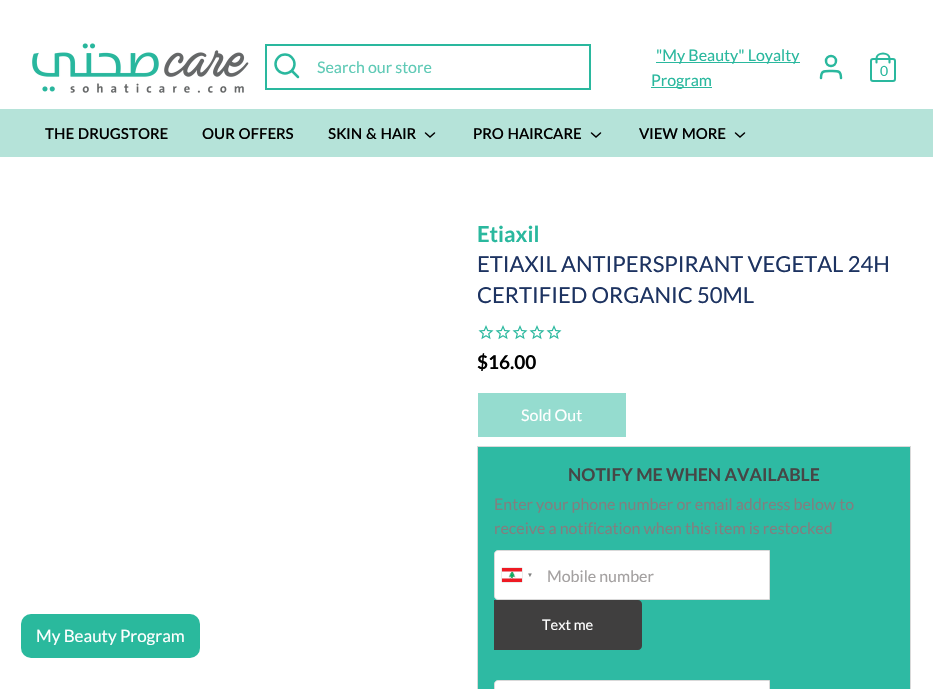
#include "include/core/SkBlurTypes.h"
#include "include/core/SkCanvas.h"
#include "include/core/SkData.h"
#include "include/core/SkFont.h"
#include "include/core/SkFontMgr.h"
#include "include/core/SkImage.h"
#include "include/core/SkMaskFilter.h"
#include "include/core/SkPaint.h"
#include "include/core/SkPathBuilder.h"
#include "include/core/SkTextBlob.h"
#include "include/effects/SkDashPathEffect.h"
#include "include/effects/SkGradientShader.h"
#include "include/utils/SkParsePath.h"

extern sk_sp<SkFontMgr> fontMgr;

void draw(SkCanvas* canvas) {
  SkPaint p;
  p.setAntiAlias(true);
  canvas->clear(SK_ColorWHITE);
  canvas->drawImageRect(SkImages::DeferredFromEncodedData(SkData::MakeFromFileName("images/1.png")), SkRect::MakeLTRB(32, 43, 249, 93), SkSamplingOptions());
  p.setStyle(SkPaint::kStroke_Style);
  p.setStrokeWidth(2);
  p.setColor(SkColorSetRGB(42, 184, 158));
  canvas->drawRect(SkRect::MakeLTRB(266, 45, 590, 89), p);
  p.setStrokeWidth(2.5f);
  canvas->drawCircle(285, 64, 9.5f, p);
  p.setStrokeCap(SkPaint::kRound_Cap);
  canvas->drawPath(SkPathBuilder().moveTo(298, 77).lineTo(292, 71).detach(), p);
  p.setStyle(SkPaint::kFill_Style);
  canvas->drawRect(SkRect::MakeLTRB(656, 62, 800, 63), p);
  canvas->drawRect(SkRect::MakeLTRB(651, 87, 712, 88), p);
  p.setStyle(SkPaint::kStroke_Style);
  canvas->drawPath(SkPathBuilder().moveTo(841, 78).cubicTo(841, 70.5f, 838, 71, 831, 71).cubicTo(824, 71, 821, 70.5f, 821, 78).detach(), p);
  p.setStrokeCap(SkPaint::kButt_Cap);
  canvas->drawCircle(831, 61, 5, p);
  p.setStrokeWidth(2);
  canvas->drawRoundRect(SkRect::MakeLTRB(871, 59, 895, 81), 2, 2, p);
  p.setStrokeWidth(2.1f);
  p.setStrokeCap(SkPaint::kRound_Cap);
  canvas->drawPath(SkPathBuilder().moveTo(876.5f, 62.5f).lineTo(876.5f, 58.5f).cubicTo(876.5f, 55.5f, 879.5f, 53.5f, 883, 53.5f).cubicTo(886.5f, 53.5f, 889.5f, 55.5f, 889.5f, 58.5f).lineTo(889.5f, 62.5f).detach(), p);
  p.setStyle(SkPaint::kFill_Style);
  p.setColor(SkColorSetRGB(181, 227, 217));
  canvas->drawRect(SkRect::MakeLTRB(0, 109, 933, 157), p);
  p.setStyle(SkPaint::kStroke_Style);
  p.setStrokeWidth(1.5f);
  p.setColor(SK_ColorBLACK);
  canvas->drawPath(SkPathBuilder().moveTo(425.5f, 133).lineTo(430, 137).lineTo(434.5f, 133).detach(), p);
  canvas->drawPath(SkPathBuilder().moveTo(591.5f, 133).lineTo(596, 137).lineTo(600.5f, 133).detach(), p);
  canvas->drawPath(SkPathBuilder().moveTo(735.5f, 133).lineTo(740, 137).lineTo(744.5f, 133).detach(), p);
  canvas->drawImageRect(SkImages::DeferredFromEncodedData(SkData::MakeFromFileName("images/2.png")), SkRect::MakeLTRB(478, 325, 494, 340), SkSamplingOptions());
  canvas->drawImageRect(SkImages::DeferredFromEncodedData(SkData::MakeFromFileName("images/2.png")), SkRect::MakeLTRB(495, 325, 511, 340), SkSamplingOptions());
  canvas->drawImageRect(SkImages::DeferredFromEncodedData(SkData::MakeFromFileName("images/2.png")), SkRect::MakeLTRB(512, 325, 528, 340), SkSamplingOptions());
  canvas->drawImageRect(SkImages::DeferredFromEncodedData(SkData::MakeFromFileName("images/2.png")), SkRect::MakeLTRB(529, 325, 545, 340), SkSamplingOptions());
  canvas->drawImageRect(SkImages::DeferredFromEncodedData(SkData::MakeFromFileName("images/2.png")), SkRect::MakeLTRB(546, 325, 562, 340), SkSamplingOptions());
  p.setStyle(SkPaint::kFill_Style);
  p.setColor(SkColorSetRGB(149, 220, 207));
  canvas->drawRect(SkRect::MakeLTRB(478, 393, 626, 437), p);
  p.setColor(SkColorSetRGB(46, 186, 163));
  canvas->drawRect(SkRect::MakeLTRB(477.5f, 446.5f, 910.5f, 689.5f), p);
  p.setStyle(SkPaint::kStroke_Style);
  p.setStrokeWidth(1);
  p.setStrokeCap(SkPaint::kButt_Cap);
  p.setColor(SkColorSetRGB(217, 217, 217));
  canvas->drawRect(SkRect::MakeLTRB(477.5f, 446.5f, 910.5f, 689.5f), p);
  p.setStyle(SkPaint::kFill_Style);
  p.setColor(SK_ColorWHITE);
  canvas->drawPath(SkPathBuilder().moveTo(498, 550.5f).lineTo(769.5f, 550.5f).lineTo(769.5f, 599.5f).lineTo(498, 599.5f).cubicTo(496, 599.5f, 494.5f, 598, 494.5f, 596).lineTo(494.5f, 554).cubicTo(494.5f, 552, 496, 550.5f, 498, 550.5f).close().detach(), p);
  p.setStyle(SkPaint::kStroke_Style);
  p.setColor(SkColorSetRGB(217, 217, 217));
  canvas->drawPath(SkPathBuilder().moveTo(498, 550.5f).lineTo(769.5f, 550.5f).lineTo(769.5f, 599.5f).lineTo(498, 599.5f).cubicTo(496, 599.5f, 494.5f, 598, 494.5f, 596).lineTo(494.5f, 554).cubicTo(494.5f, 552, 496, 550.5f, 498, 550.5f).close().detach(), p);
  p.setStyle(SkPaint::kFill_Style);
  p.setColor(SkColorSetRGB(136, 136, 136));
  p.setMaskFilter(SkMaskFilter::MakeBlur(kNormal_SkBlurStyle, 0.5f));
  canvas->drawRect(SkRect::MakeLTRB(502, 568, 522, 582), p);
  p.setMaskFilter(nullptr);
  canvas->drawImageRect(SkImages::DeferredFromEncodedData(SkData::MakeFromFileName("images/3.png")), SkRect::MakeLTRB(502, 568, 522, 582), SkSamplingOptions());
  p.setColor(SkColorSetRGB(64, 63, 63));
  canvas->drawPath(SkPathBuilder().moveTo(494, 600).lineTo(638, 600).cubicTo(640, 600, 642, 602, 642, 604).lineTo(642, 646).cubicTo(642, 648, 640, 650, 638, 650).lineTo(494, 650).close().detach(), p);
  p.setColor(SK_ColorWHITE);
  canvas->drawPath(SkPathBuilder().moveTo(498, 680.5f).lineTo(769.5f, 680.5f).lineTo(769.5f, 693.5f).lineTo(498, 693.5f).cubicTo(496, 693.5f, 494.5f, 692, 494.5f, 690).lineTo(494.5f, 684).cubicTo(494.5f, 682, 496, 680.5f, 498, 680.5f).close().detach(), p);
  p.setStyle(SkPaint::kStroke_Style);
  p.setColor(SkColorSetRGB(217, 217, 217));
  canvas->drawPath(SkPathBuilder().moveTo(498, 680.5f).lineTo(769.5f, 680.5f).lineTo(769.5f, 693.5f).lineTo(498, 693.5f).cubicTo(496, 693.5f, 494.5f, 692, 494.5f, 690).lineTo(494.5f, 684).cubicTo(494.5f, 682, 496, 680.5f, 498, 680.5f).close().detach(), p);
  p.setStyle(SkPaint::kFill_Style);
  p.setColor(SkColorSetRGB(42, 185, 157));
  canvas->drawRoundRect(SkRect::MakeLTRB(21, 614, 200, 658), 10, 10, p);
  SkFont font1(fontMgr->matchFamilyStyle("Lato", SkFontStyle::Normal()), 16);
  font1.setSubpixel(true);
  p.setColor(SkColorSetRGB(95, 202, 182));
  canvas->drawString("Search our store", 317, 73, font1, p);
  p.setColor(SkColorSetRGB(42, 184, 158));
  canvas->drawString("\"My Beauty\" Loyalty", 656, 61, font1, p);
  canvas->drawString("Program", 651, 86, font1, p);
  SkFont font2(fontMgr->matchFamilyStyle("Lato", SkFontStyle::Normal()), 14);
  font2.setSubpixel(true);
  canvas->drawString("0", 880, 76, font2, p);
  SkFont font3(fontMgr->matchFamilyStyle("Lato", SkFontStyle(600, SkFontStyle::kNormal_Width, SkFontStyle::kUpright_Slant)), 15);
  font3.setSubpixel(true);
  p.setColor(SK_ColorBLACK);
  canvas->drawString("THE DRUGSTORE", 45, 139, font3, p);
  canvas->drawString("OUR OFFERS", 202, 139, font3, p);
  canvas->drawString("SKIN & HAIR", 328, 139, font3, p);
  canvas->drawString("PRO HAIRCARE", 473, 139, font3, p);
  canvas->drawString("VIEW MORE", 639, 139, font3, p);
  SkFont font4(fontMgr->matchFamilyStyle("Lato", SkFontStyle::Bold()), 22);
  font4.setSubpixel(true);
  p.setColor(SkColorSetRGB(42, 184, 158));
  canvas->drawString("Etiaxil", 477, 242, font4, p);
  SkFont font5(fontMgr->matchFamilyStyle("Lato", SkFontStyle::Normal()), 22);
  font5.setSubpixel(true);
  p.setColor(SkColorSetRGB(29, 51, 97));
  canvas->drawString("ETIAXIL ANTIPERSPIRANT VEGETAL 24H", 477, 272, font5, p);
  canvas->drawString("CERTIFIED ORGANIC 50ML", 477, 303, font5, p);
  SkFont font6(fontMgr->matchFamilyStyle("Lato", SkFontStyle::Bold()), 19);
  font6.setSubpixel(true);
  p.setColor(SK_ColorBLACK);
  canvas->drawString("$16.00", 477, 369, font6, p);
  p.setColor(SK_ColorWHITE);
  canvas->drawString("Sold Out", 521, 421, font1, p);
  SkFont font7(fontMgr->matchFamilyStyle("Lato", SkFontStyle::Bold()), 17.6f);
  font7.setSubpixel(true);
  p.setColor(SkColorSetRGB(70, 70, 70));
  canvas->drawString("NOTIFY ME WHEN AVAILABLE", 568, 481, font7, p);
  p.setColor(SkColorSetRGB(128, 128, 128));
  canvas->drawString("Enter your phone number or email address below to", 494, 510, font1, p);
  canvas->drawString("receive a notification when this item is restocked", 494, 534, font1, p);
  SkFont font8(fontMgr->matchFamilyStyle("Liberation Sans", SkFontStyle::Normal()), 6);
  font8.setSubpixel(true);
  canvas->drawString("▼", 527, 577, font8, p);
  p.setColor(SkColorSetRGB(164, 161, 161));
  canvas->drawString("Mobile number", 547, 582, font1, p);
  SkFont font9(fontMgr->matchFamilyStyle("Lato", SkFontStyle::Normal()), 14.5f);
  font9.setSubpixel(true);
  p.setColor(SK_ColorWHITE);
  canvas->drawString("Text me", 542, 630, font9, p);
  SkFont font10(fontMgr->matchFamilyStyle("Lato", SkFontStyle::Normal()), 17);
  font10.setSubpixel(true);
  canvas->drawString("My Beauty Program", 36, 642, font10, p);
}
